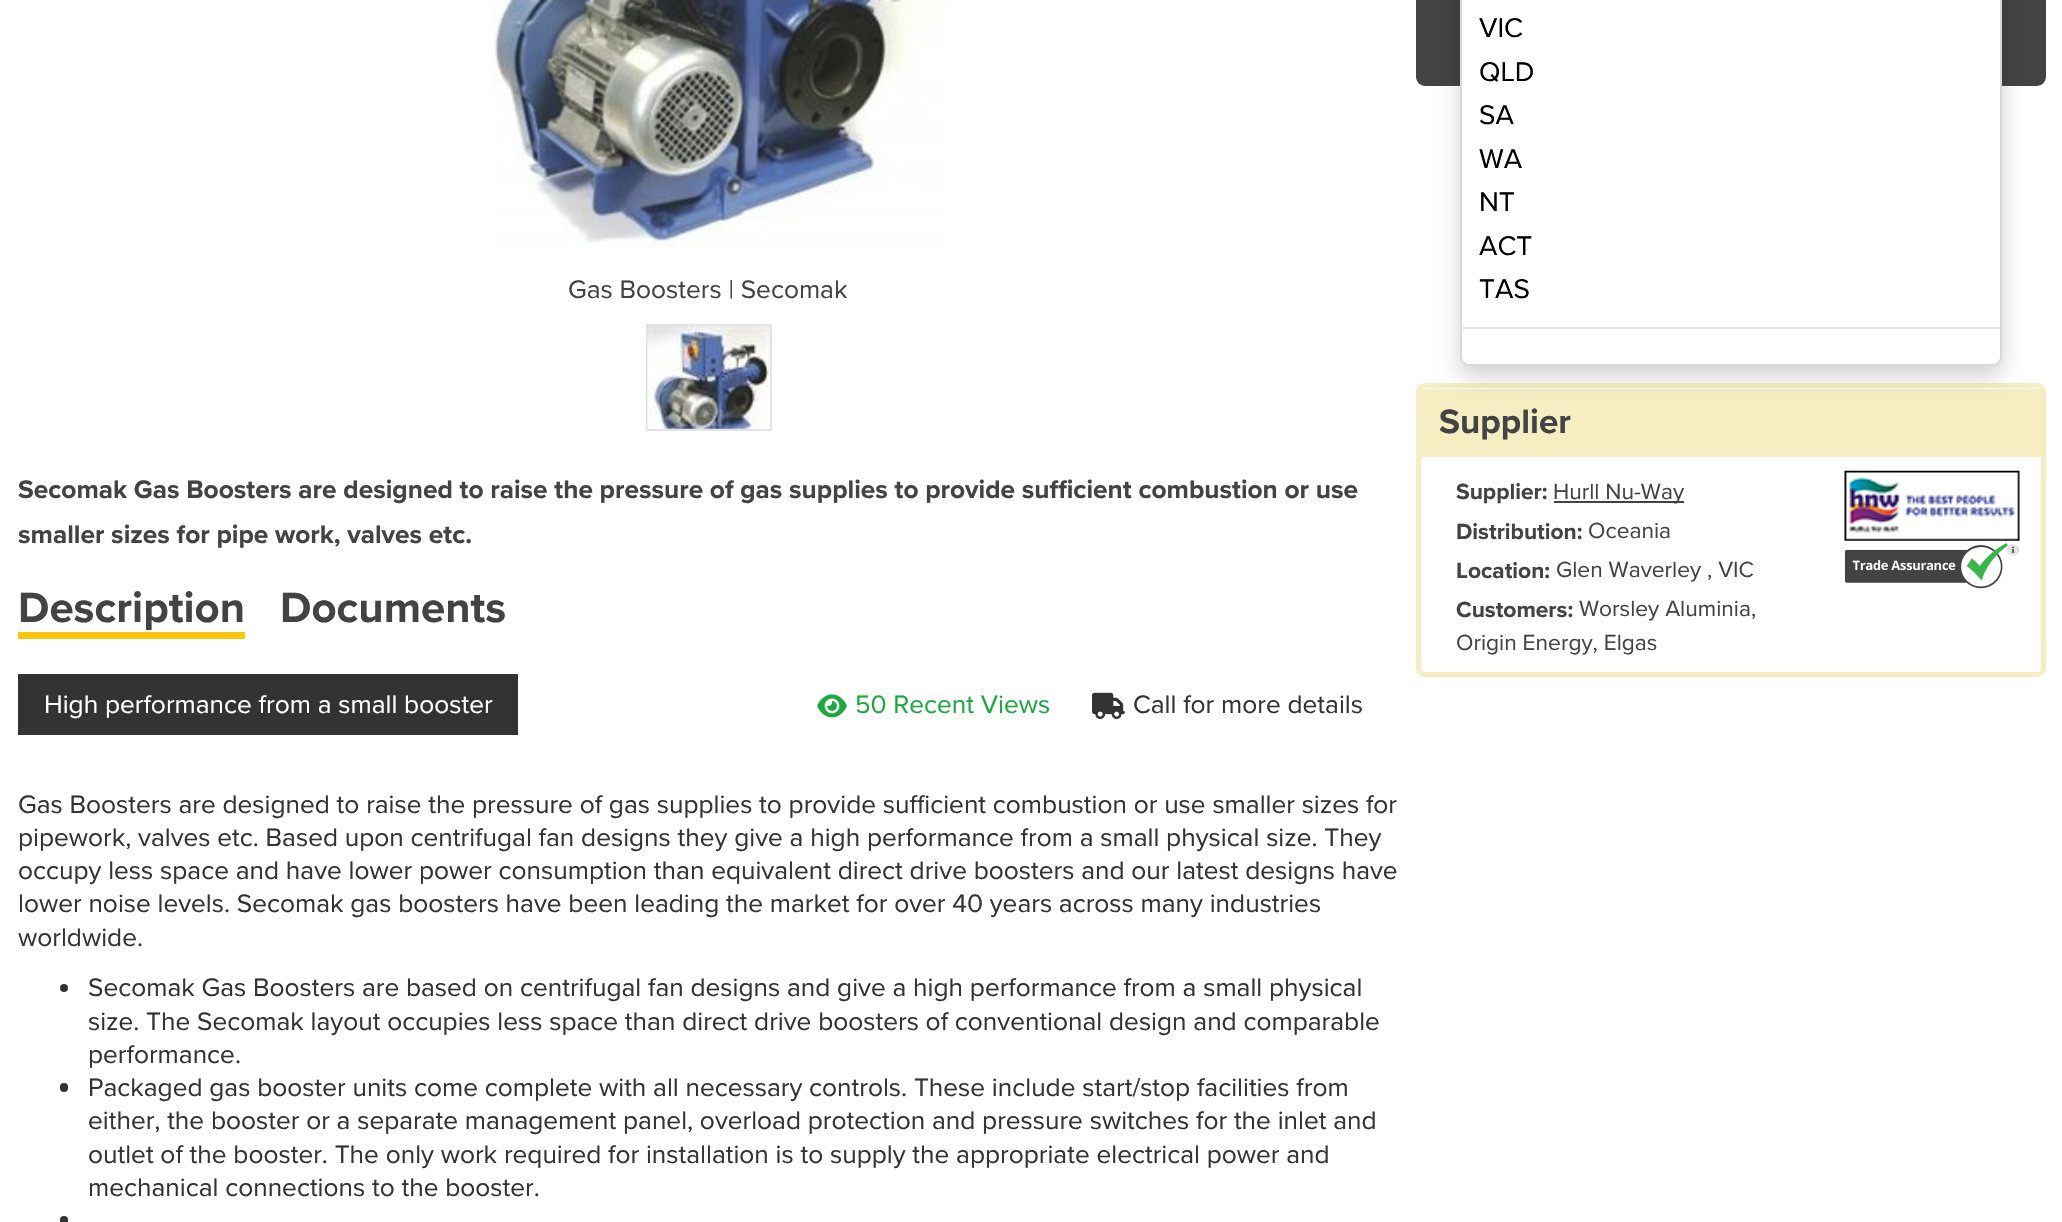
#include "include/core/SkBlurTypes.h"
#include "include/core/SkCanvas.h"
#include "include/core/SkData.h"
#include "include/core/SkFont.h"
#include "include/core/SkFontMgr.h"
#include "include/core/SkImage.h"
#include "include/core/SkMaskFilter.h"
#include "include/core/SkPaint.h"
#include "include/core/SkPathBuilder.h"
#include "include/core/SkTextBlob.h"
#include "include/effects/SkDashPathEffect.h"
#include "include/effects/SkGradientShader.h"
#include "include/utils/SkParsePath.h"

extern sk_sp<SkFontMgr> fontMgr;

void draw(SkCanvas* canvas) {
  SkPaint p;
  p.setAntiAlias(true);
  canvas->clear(SK_ColorWHITE);
  canvas->drawImageRect(SkImages::DeferredFromEncodedData(SkData::MakeFromFileName("images/1.png")), SkRect::MakeLTRB(491, 0, 949, 249), SkSamplingOptions());
  p.setStyle(SkPaint::kStroke_Style);
  p.setStrokeWidth(2);
  p.setColor(SkColorSetRGB(226, 227, 232));
  canvas->drawRect(SkRect::MakeLTRB(647, 325, 771, 430), p);
  canvas->drawImageRect(SkImages::DeferredFromEncodedData(SkData::MakeFromFileName("images/2.png")), SkRect::MakeLTRB(647, 325, 770, 429), SkSamplingOptions());
  p.setStyle(SkPaint::kFill_Style);
  p.setColor(SkColorSetRGB(251, 197, 9));
  canvas->drawRect(SkRect::MakeLTRB(18, 632, 245, 639), p);
  p.setColor(SkColorSetRGB(51, 51, 51));
  canvas->drawRect(SkRect::MakeLTRB(18, 674, 518, 735), p);
  canvas->drawImageRect(SkImages::DeferredFromEncodedData(SkData::MakeFromFileName("images/3.png")), SkRect::MakeLTRB(817, 694, 847, 718), SkSamplingOptions());
  canvas->drawImageRect(SkImages::DeferredFromEncodedData(SkData::MakeFromFileName("images/4.png")), SkRect::MakeLTRB(1092, 692, 1125, 719), SkSamplingOptions());
  canvas->drawCircle(64, 988, 4, p);
  canvas->drawRoundRect(SkRect::MakeLTRB(60, 1083, 68, 1092), 4, 4, p);
  canvas->drawRoundRect(SkRect::MakeLTRB(60, 1216, 68, 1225), 4, 4, p);
  p.setColor(SkColorSetRGB(67, 67, 67));
  canvas->drawRoundRect(SkRect::MakeLTRB(1416, -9, 2046, 86), 9, 9, p);
  p.setStyle(SkPaint::kStroke_Style);
  p.setStrokeWidth(5);
  p.setColor(SkColorSetRGB(247, 237, 194));
  canvas->drawRoundRect(SkRect::MakeLTRB(1418.5f, 385.5f, 2043.5f, 674.5f), 6.5f, 6.5f, p);
  p.setStyle(SkPaint::kFill_Style);
  canvas->drawRect(SkRect::MakeLTRB(1421, 389, 2041, 457), p);
  p.setColor(SkColorSetARGB(46, 0, 0, 0));
  p.setMaskFilter(SkMaskFilter::MakeBlur(kNormal_SkBlurStyle, 10.5f));
  canvas->drawRoundRect(SkRect::MakeLTRB(1460, -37, 2002, 376), 9, 9, p);
  p.setMaskFilter(nullptr);
  p.setColor(SK_ColorWHITE);
  canvas->drawRoundRect(SkRect::MakeLTRB(1460, -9, 2002, 366), 9, 9, p);
  p.setStyle(SkPaint::kStroke_Style);
  p.setStrokeWidth(2);
  p.setColor(SkColorSetARGB(38, 0, 0, 0));
  canvas->drawRoundRect(SkRect::MakeLTRB(1461, -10, 2001, 365), 8, 8, p);
  p.setStyle(SkPaint::kFill_Style);
  p.setColor(SkColorSetRGB(229, 229, 229));
  canvas->drawRect(SkRect::MakeLTRB(1461, 327, 2000, 329), p);
  p.setColor(SkColorSetRGB(67, 67, 67));
  canvas->drawRect(SkRect::MakeLTRB(1554, 501, 1684, 503), p);
  canvas->drawImageRect(SkImages::DeferredFromEncodedData(SkData::MakeFromFileName("images/5.png")), SkRect::MakeLTRB(1844, 470, 2020, 541), SkSamplingOptions());
  canvas->drawImageRect(SkImages::DeferredFromEncodedData(SkData::MakeFromFileName("images/6.png")), SkRect::MakeLTRB(1845, 543, 2019, 589), SkSamplingOptions());
  SkFont font1(fontMgr->matchFamilyStyle("Proxima Nova", SkFontStyle::Normal()), 26.25f);
  font1.setSubpixel(true);
  canvas->drawString("Gas Boosters | Secomak", 568, 298, font1, p);
  SkFont font2(fontMgr->matchFamilyStyle("Proxima Nova", SkFontStyle::Bold()), 26.25f);
  font2.setSubpixel(true);
  canvas->drawString("Secomak Gas Boosters are designed to raise the pressure of gas supplies to provide sufficient combustion or use", 18, 498, font2, p);
  canvas->drawString("smaller sizes for pipe work, valves etc.", 18, 543, font2, p);
  SkFont font3(fontMgr->matchFamilyStyle("Proxima Nova", SkFontStyle::Bold()), 43.75f);
  font3.setSubpixel(true);
  canvas->drawString("Description", 18, 622, font3, p);
  canvas->drawString("Documents", 280, 622, font3, p);
  p.setColor(SK_ColorWHITE);
  canvas->drawString("High performance from a small booster", 44, 713, font1, p);
  p.setColor(SkColorSetRGB(29, 168, 63));
  canvas->drawString("50 Recent Views", 855, 713, font1, p);
  p.setColor(SkColorSetRGB(51, 51, 51));
  canvas->drawString("Call for more details", 1133, 713, font1, p);
  canvas->drawString("Gas Boosters are designed to raise the pressure of gas supplies to provide sufficient combustion or use smaller sizes for", 18, 813, font1, p);
  canvas->drawString("pipework, valves etc. Based upon centrifugal fan designs they give a high performance from a small physical size. They", 18, 846, font1, p);
  canvas->drawString("occupy less space and have lower power consumption than equivalent direct drive boosters and our latest designs have", 18, 879, font1, p);
  canvas->drawString("lower noise levels. Secomak gas boosters have been leading the market for over 40 years across many industries", 18, 912, font1, p);
  canvas->drawString("worldwide.", 18, 946, font1, p);
  canvas->drawString("Secomak Gas Boosters are based on centrifugal fan designs and give a high performance from a small physical", 88, 996, font1, p);
  canvas->drawString("size. The Secomak layout occupies less space than direct drive boosters of conventional design and comparable", 88, 1030, font1, p);
  canvas->drawString("performance.", 88, 1063, font1, p);
  canvas->drawString("Packaged gas booster units come complete with all necessary controls. These include start/stop facilities from", 88, 1096, font1, p);
  canvas->drawString("either, the booster or a separate management panel, overload protection and pressure switches for the inlet and", 88, 1129, font1, p);
  canvas->drawString("outlet of the booster. The only work required for installation is to supply the appropriate electrical power and", 88, 1163, font1, p);
  canvas->drawString("mechanical connections to the booster.", 88, 1196, font1, p);
  SkFont font4(fontMgr->matchFamilyStyle("Proxima Nova", SkFontStyle::Normal()), 28);
  font4.setSubpixel(true);
  p.setColor(SK_ColorBLACK);
  canvas->drawString("VIC", 1479, 37, font4, p);
  canvas->drawString("QLD", 1479, 81, font4, p);
  canvas->drawString("SA", 1479, 124, font4, p);
  canvas->drawString("WA", 1479, 168, font4, p);
  canvas->drawString("NT", 1479, 211, font4, p);
  canvas->drawString("ACT", 1479, 255, font4, p);
  canvas->drawString("TAS", 1479, 298, font4, p);
  SkFont font5(fontMgr->matchFamilyStyle("Proxima Nova", SkFontStyle::Bold()), 35);
  font5.setSubpixel(true);
  p.setColor(SkColorSetRGB(67, 67, 67));
  canvas->drawString("Supplier", 1439, 433, font5, p);
  SkFont font6(fontMgr->matchFamilyStyle("Proxima Nova", SkFontStyle::Bold()), 22.75f);
  font6.setSubpixel(true);
  canvas->drawString("Supplier:", 1456, 499, font6, p);
  SkFont font7(fontMgr->matchFamilyStyle("Proxima Nova", SkFontStyle::Normal()), 22.75f);
  font7.setSubpixel(true);
  canvas->drawString("Hurll Nu-Way", 1553, 499, font7, p);
  canvas->drawString("Distribution:", 1456, 539, font6, p);
  canvas->drawString("Oceania", 1588, 538, font7, p);
  canvas->drawString("Location:", 1456, 578, font6, p);
  canvas->drawString("Glen Waverley , VIC", 1556, 577, font7, p);
  canvas->drawString("Customers:", 1456, 617, font6, p);
  canvas->drawString("Worsley Aluminia,", 1579, 616, font7, p);
  canvas->drawString("Origin Energy, Elgas", 1456, 650, font7, p);
}
